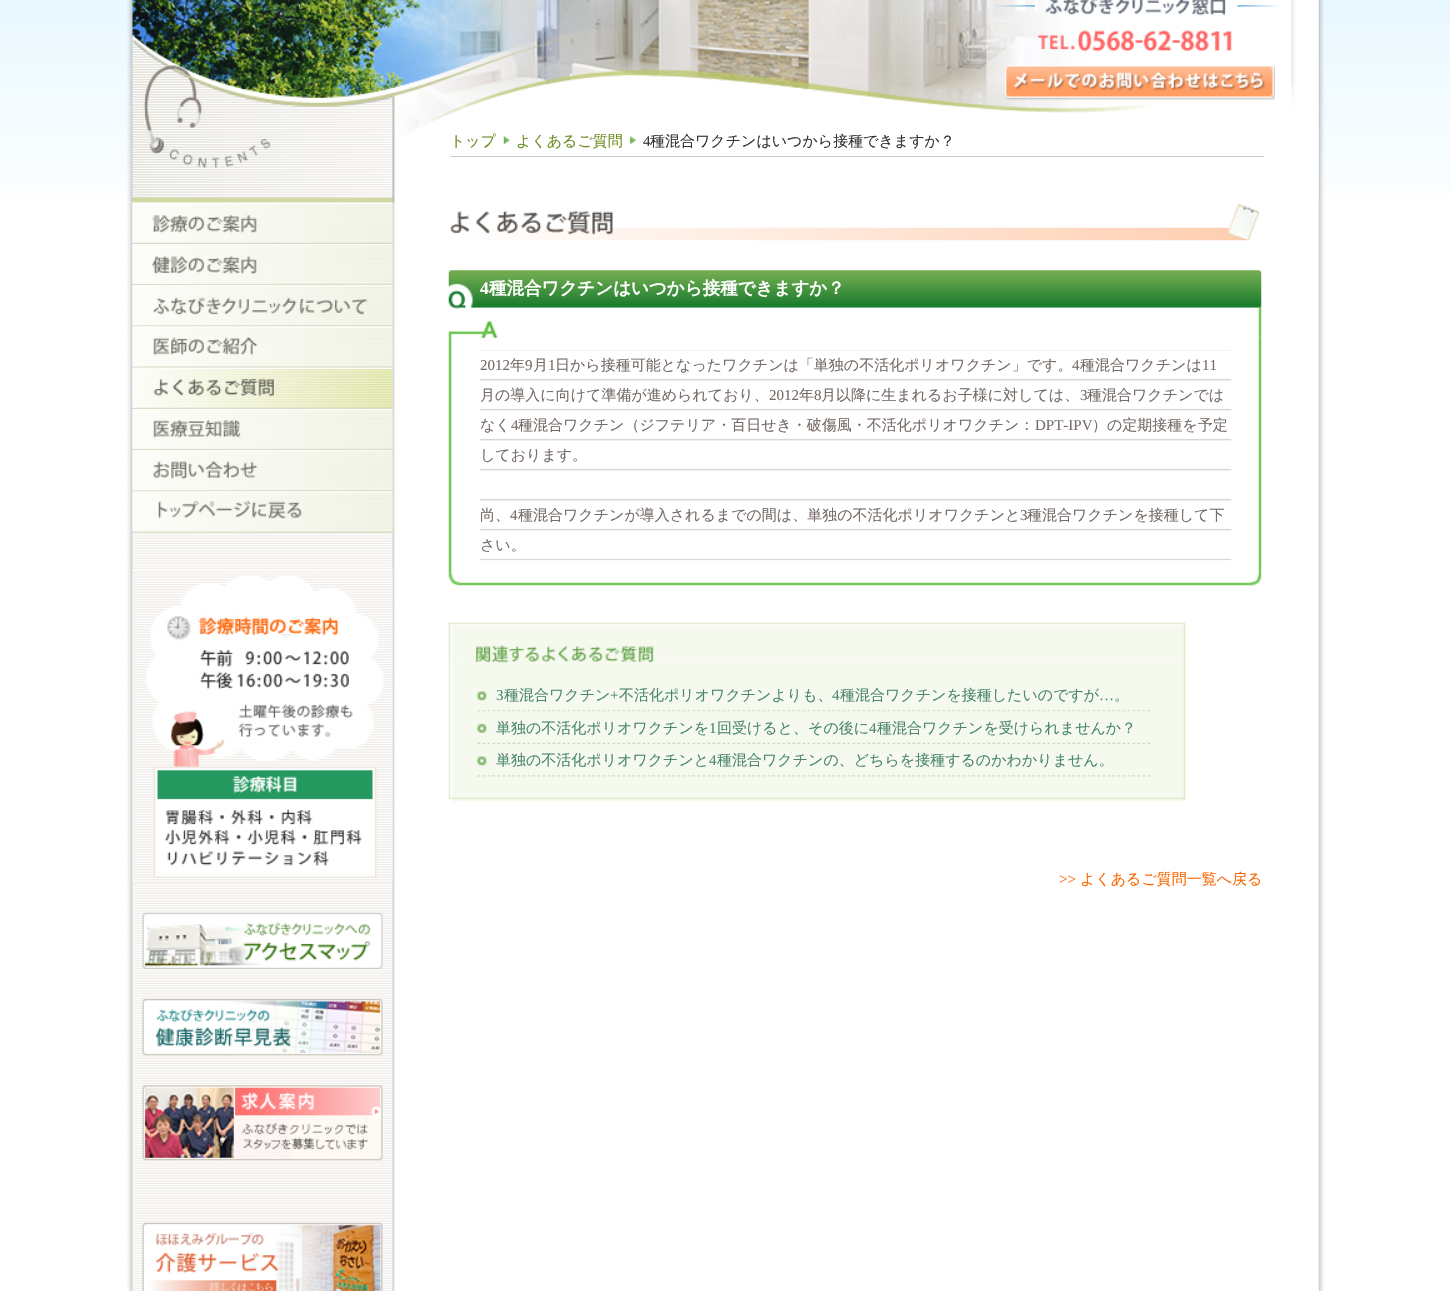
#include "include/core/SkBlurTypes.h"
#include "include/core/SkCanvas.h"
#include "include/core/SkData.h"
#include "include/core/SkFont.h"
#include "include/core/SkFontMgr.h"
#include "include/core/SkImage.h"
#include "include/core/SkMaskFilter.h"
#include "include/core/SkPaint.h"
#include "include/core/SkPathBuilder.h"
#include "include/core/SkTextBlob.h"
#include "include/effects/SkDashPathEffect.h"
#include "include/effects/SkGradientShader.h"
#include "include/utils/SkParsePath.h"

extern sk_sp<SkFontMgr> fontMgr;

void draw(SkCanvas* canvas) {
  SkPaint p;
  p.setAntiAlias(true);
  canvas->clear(SK_ColorWHITE);
  canvas->drawImageRect(SkImages::DeferredFromEncodedData(SkData::MakeFromFileName("images/1.png")), SkRect::MakeLTRB(0, 0, 1450, 194), SkSamplingOptions());
  canvas->drawImageRect(SkImages::DeferredFromEncodedData(SkData::MakeFromFileName("images/2.png")), SkRect::MakeLTRB(127, 0, 1324, 108), SkSamplingOptions());
  canvas->drawImageRect(SkImages::DeferredFromEncodedData(SkData::MakeFromFileName("images/3.png")), SkRect::MakeLTRB(1005, 65, 1275, 101), SkSamplingOptions());
  canvas->drawImageRect(SkImages::DeferredFromEncodedData(SkData::MakeFromFileName("images/4.png")), SkRect::MakeLTRB(126, 107, 1325, 203), SkSamplingOptions());
  p.setColor(SkColorSetRGB(204, 204, 204));
  canvas->drawRect(SkRect::MakeLTRB(450, 156, 1264, 157), p);
  canvas->drawImageRect(SkImages::DeferredFromEncodedData(SkData::MakeFromFileName("images/5.png")), SkRect::MakeLTRB(503, 136, 511, 145), SkSamplingOptions());
  canvas->drawImageRect(SkImages::DeferredFromEncodedData(SkData::MakeFromFileName("images/6.png")), SkRect::MakeLTRB(629, 136, 637, 145), SkSamplingOptions());
  canvas->drawImageRect(SkImages::DeferredFromEncodedData(SkData::MakeFromFileName("images/7.png")), SkRect::MakeLTRB(127, 202, 1324, 1291), SkSamplingOptions());
  canvas->drawImageRect(SkImages::DeferredFromEncodedData(SkData::MakeFromFileName("images/8.png")), SkRect::MakeLTRB(132, 202, 393, 244), SkSamplingOptions());
  canvas->drawImageRect(SkImages::DeferredFromEncodedData(SkData::MakeFromFileName("images/9.png")), SkRect::MakeLTRB(132, 244, 393, 286), SkSamplingOptions());
  canvas->drawImageRect(SkImages::DeferredFromEncodedData(SkData::MakeFromFileName("images/10.png")), SkRect::MakeLTRB(132, 285, 393, 327), SkSamplingOptions());
  canvas->drawImageRect(SkImages::DeferredFromEncodedData(SkData::MakeFromFileName("images/11.png")), SkRect::MakeLTRB(132, 326, 393, 368), SkSamplingOptions());
  canvas->drawImageRect(SkImages::DeferredFromEncodedData(SkData::MakeFromFileName("images/12.png")), SkRect::MakeLTRB(132, 367, 393, 409), SkSamplingOptions());
  canvas->drawImageRect(SkImages::DeferredFromEncodedData(SkData::MakeFromFileName("images/13.png")), SkRect::MakeLTRB(132, 409, 393, 451), SkSamplingOptions());
  canvas->drawImageRect(SkImages::DeferredFromEncodedData(SkData::MakeFromFileName("images/14.png")), SkRect::MakeLTRB(132, 450, 393, 492), SkSamplingOptions());
  canvas->drawImageRect(SkImages::DeferredFromEncodedData(SkData::MakeFromFileName("images/15.png")), SkRect::MakeLTRB(132, 491, 393, 533), SkSamplingOptions());
  canvas->drawImageRect(SkImages::DeferredFromEncodedData(SkData::MakeFromFileName("images/16.png")), SkRect::MakeLTRB(132, 570, 393, 883), SkSamplingOptions());
  canvas->drawImageRect(SkImages::DeferredFromEncodedData(SkData::MakeFromFileName("images/17.png")), SkRect::MakeLTRB(142, 912, 383, 969), SkSamplingOptions());
  canvas->drawImageRect(SkImages::DeferredFromEncodedData(SkData::MakeFromFileName("images/18.png")), SkRect::MakeLTRB(142, 999, 383, 1056), SkSamplingOptions());
  canvas->drawImageRect(SkImages::DeferredFromEncodedData(SkData::MakeFromFileName("images/19.png")), SkRect::MakeLTRB(142, 1085, 383, 1161), SkSamplingOptions());
  canvas->drawImageRect(SkImages::DeferredFromEncodedData(SkData::MakeFromFileName("images/20.png")), SkRect::MakeLTRB(142, 1222, 383, 1291), SkSamplingOptions());
  canvas->drawImageRect(SkImages::DeferredFromEncodedData(SkData::MakeFromFileName("images/21.png")), SkRect::MakeLTRB(450, 204, 1259, 241), SkSamplingOptions());
  canvas->drawImageRect(SkImages::DeferredFromEncodedData(SkData::MakeFromFileName("images/22.png")), SkRect::MakeLTRB(448, 270, 1262, 308), SkSamplingOptions());
  canvas->drawImageRect(SkImages::DeferredFromEncodedData(SkData::MakeFromFileName("images/24.png")), SkRect::MakeLTRB(448, 337, 1262, 573), SkSamplingOptions());
  canvas->drawImageRect(SkImages::DeferredFromEncodedData(SkData::MakeFromFileName("images/23.png")), SkRect::MakeLTRB(448, 307, 1262, 338), SkSamplingOptions());
  canvas->drawImageRect(SkImages::DeferredFromEncodedData(SkData::MakeFromFileName("images/25.png")), SkRect::MakeLTRB(480, 350, 1232, 561), SkSamplingOptions());
  canvas->drawImageRect(SkImages::DeferredFromEncodedData(SkData::MakeFromFileName("images/26.png")), SkRect::MakeLTRB(448, 572, 1262, 586), SkSamplingOptions());
  canvas->drawImageRect(SkImages::DeferredFromEncodedData(SkData::MakeFromFileName("images/28.png")), SkRect::MakeLTRB(448, 662, 1187, 789), SkSamplingOptions());
  canvas->drawImageRect(SkImages::DeferredFromEncodedData(SkData::MakeFromFileName("images/27.png")), SkRect::MakeLTRB(448, 622, 1187, 663), SkSamplingOptions());
  canvas->drawImageRect(SkImages::DeferredFromEncodedData(SkData::MakeFromFileName("images/29.png")), SkRect::MakeLTRB(477, 691, 1150, 712), SkSamplingOptions());
  canvas->drawImageRect(SkImages::DeferredFromEncodedData(SkData::MakeFromFileName("images/30.png")), SkRect::MakeLTRB(477, 711, 1151, 744), SkSamplingOptions());
  canvas->drawImageRect(SkImages::DeferredFromEncodedData(SkData::MakeFromFileName("images/29.png")), SkRect::MakeLTRB(477, 756, 1150, 777), SkSamplingOptions());
  canvas->drawImageRect(SkImages::DeferredFromEncodedData(SkData::MakeFromFileName("images/31.png")), SkRect::MakeLTRB(448, 789, 1187, 802), SkSamplingOptions());
  SkFont font1(fontMgr->matchFamilyStyle("WenQuanYi Zen Hei", SkFontStyle(500, SkFontStyle::kNormal_Width, SkFontStyle::kUpright_Slant)), 15);
  font1.setSubpixel(true);
  p.setColor(SkColorSetRGB(109, 142, 34));
  canvas->drawString("トップ", 450, 146, font1, p);
  canvas->drawString("よくあるご質問", 516, 146, font1, p);
  SkFont font2(fontMgr->matchFamilyStyle("Liberation Serif", SkFontStyle::Normal()), 15);
  font2.setSubpixel(true);
  p.setColor(SkColorSetRGB(51, 51, 51));
  canvas->drawString("4", 643, 146, font2, p);
  canvas->drawString("種混合ワクチンはいつから接種できますか？", 650, 146, font1, p);
  SkFont font3(fontMgr->matchFamilyStyle("Liberation Serif", SkFontStyle::Bold()), 17.5f);
  font3.setSubpixel(true);
  p.setColor(SK_ColorWHITE);
  canvas->drawString("4", 480, 294, font3, p);
  SkFont font4(fontMgr->matchFamilyStyle("WenQuanYi Zen Hei", SkFontStyle::Bold()), 17.5f);
  font4.setSubpixel(true);
  canvas->drawString("種混合ワクチンはいつから接種できますか？", 489, 294, font4, p);
  p.setColor(SkColorSetRGB(117, 107, 103));
  canvas->drawString("2012", 480, 370, font2, p);
  canvas->drawString("年", 510, 370, font1, p);
  canvas->drawString("9", 525, 370, font2, p);
  canvas->drawString("月", 533, 370, font1, p);
  canvas->drawString("1", 548, 370, font2, p);
  canvas->drawString("日から接種可能となったワクチンは「単独の不活化ポリオワクチン」です。", 555, 370, font1, p);
  canvas->drawString("4", 1072, 370, font2, p);
  canvas->drawString("種混合ワクチンは", 1080, 370, font1, p);
  canvas->drawString("11", 1202, 370, font2, p);
  canvas->drawString("月の導入に向けて準備が進められており、", 480, 400, font1, p);
  canvas->drawString("2012", 769, 400, font2, p);
  canvas->drawString("年", 799, 400, font1, p);
  canvas->drawString("8", 814, 400, font2, p);
  canvas->drawString("月以降に生まれるお子様に対しては、", 821, 400, font1, p);
  canvas->drawString("3", 1080, 400, font2, p);
  canvas->drawString("種混合ワクチンでは", 1087, 400, font1, p);
  canvas->drawString("なく", 480, 430, font1, p);
  canvas->drawString("4", 511, 430, font2, p);
  canvas->drawString("種混合ワクチン（ジフテリア・百日せき・破傷風・不活化ポリオワクチン：", 518, 430, font1, p);
  canvas->drawString("DPT-IPV", 1035, 430, font2, p);
  canvas->drawString("）の定期接種を予定", 1092, 430, font1, p);
  canvas->drawString("しております。", 480, 460, font1, p);
  canvas->drawString("尚、", 480, 520, font1, p);
  canvas->drawString("4", 510, 520, font2, p);
  canvas->drawString("種混合ワクチンが導入されるまでの間は、単独の不活化ポリオワクチンと", 518, 520, font1, p);
  canvas->drawString("3", 1020, 520, font2, p);
  canvas->drawString("種混合ワクチンを接種して下", 1027, 520, font1, p);
  canvas->drawString("さい。", 480, 550, font1, p);
  p.setColor(SkColorSetRGB(75, 135, 112));
  canvas->drawString("3", 496, 700, font2, p);
  canvas->drawString("種混合ワクチン", 504, 700, font1, p);
  canvas->drawString("+", 610, 700, font2, p);
  canvas->drawString("不活化ポリオワクチンよりも、", 619, 700, font1, p);
  canvas->drawString("4", 832, 700, font2, p);
  canvas->drawString("種混合ワクチンを接種したいのですが", 840, 700, font1, p);
  canvas->drawString("…", 1099, 700, font2, p);
  canvas->drawString("。", 1114, 700, font1, p);
  canvas->drawString("単独の不活化ポリオワクチンを", 496, 733, font1, p);
  canvas->drawString("1", 709, 733, font2, p);
  canvas->drawString("回受けると、その後に", 717, 733, font1, p);
  canvas->drawString("4", 869, 733, font2, p);
  canvas->drawString("種混合ワクチンを受けられませんか？", 877, 733, font1, p);
  canvas->drawString("単独の不活化ポリオワクチンと", 496, 765, font1, p);
  canvas->drawString("4", 709, 765, font2, p);
  canvas->drawString("種混合ワクチンの、どちらを接種するのかわかりません。", 717, 765, font1, p);
  p.setColor(SkColorSetRGB(255, 102, 0));
  canvas->drawString(">>", 1059, 884, font2, p);
  canvas->drawString("よくあるご質問一覧へ戻る", 1080, 884, font1, p);
}
